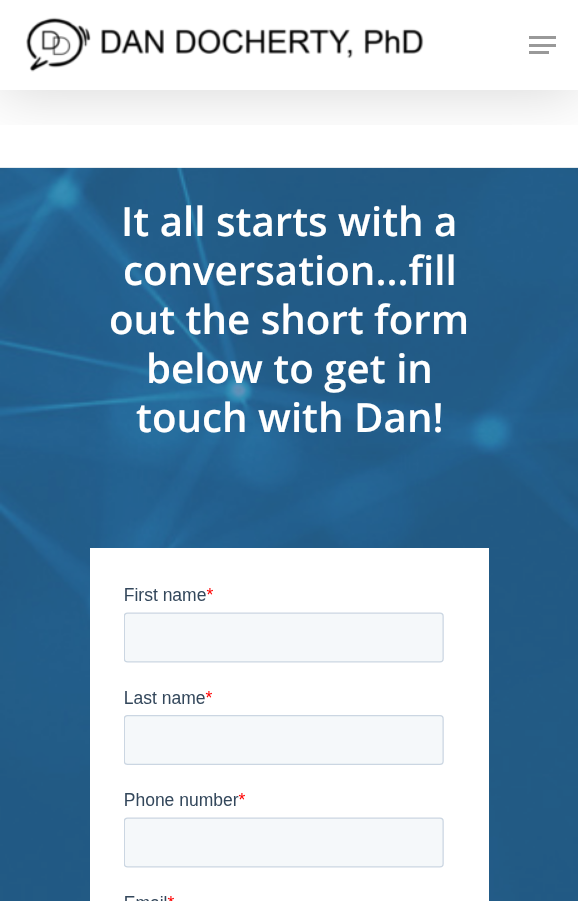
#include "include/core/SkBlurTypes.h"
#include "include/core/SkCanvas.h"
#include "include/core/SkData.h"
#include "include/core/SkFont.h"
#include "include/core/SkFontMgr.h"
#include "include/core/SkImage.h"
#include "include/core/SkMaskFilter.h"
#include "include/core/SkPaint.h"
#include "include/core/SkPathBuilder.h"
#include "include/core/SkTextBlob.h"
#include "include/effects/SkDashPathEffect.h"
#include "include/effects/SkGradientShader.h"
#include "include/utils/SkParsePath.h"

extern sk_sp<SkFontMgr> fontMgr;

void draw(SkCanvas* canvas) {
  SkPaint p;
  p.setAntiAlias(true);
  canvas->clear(SK_ColorWHITE);
  canvas->drawImageRect(SkImages::DeferredFromEncodedData(SkData::MakeFromFileName("images/2.png")), SkRect::MakeLTRB(0, 167, 578, 901), SkSamplingOptions());
  canvas->save();
  canvas->clipRect(SkRect::MakeLTRB(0, 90, 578, 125));
  p.setColor(SkColorSetARGB(38, 0, 0, 0));
  p.setMaskFilter(SkMaskFilter::MakeBlur(kNormal_SkBlurStyle, 28));
  canvas->drawRect(SkRect::MakeLTRB(0, 4, 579, 94), p);
  p.setMaskFilter(nullptr);
  canvas->restore();
  canvas->drawImageRect(SkImages::DeferredFromEncodedData(SkData::MakeFromFileName("images/1.png")), SkRect::MakeLTRB(26, 17, 424, 72), SkSamplingOptions());
  p.setColor(SkColorSetRGB(153, 153, 153));
  canvas->drawRect(SkRect::MakeLTRB(529, 36, 556, 39), p);
  canvas->drawRect(SkRect::MakeLTRB(529, 51, 549, 54), p);
  canvas->drawRect(SkRect::MakeLTRB(529, 44, 556, 47), p);
  p.setColor(SK_ColorWHITE);
  canvas->drawRect(SkRect::MakeLTRB(90, 548, 489, 901), p);
  canvas->drawImageRect(SkImages::DeferredFromEncodedData(SkData::MakeFromFileName("images/3.png")), SkRect::MakeLTRB(124, 588, 444, 901), SkSamplingOptions());
  SkFont font1(fontMgr->matchFamilyStyle("Open Sans", SkFontStyle(600, SkFontStyle::kNormal_Width, SkFontStyle::kUpright_Slant)), 40.25f);
  font1.setSubpixel(true);
  canvas->drawString("It all starts with a", 121, 236, font1, p);
  canvas->drawString("conversation...fill", 123, 285, font1, p);
  canvas->drawString("out the short form", 109, 334, font1, p);
  canvas->drawString("below to get in", 146, 383, font1, p);
  canvas->drawString("touch with Dan!", 136, 432, font1, p);
}
